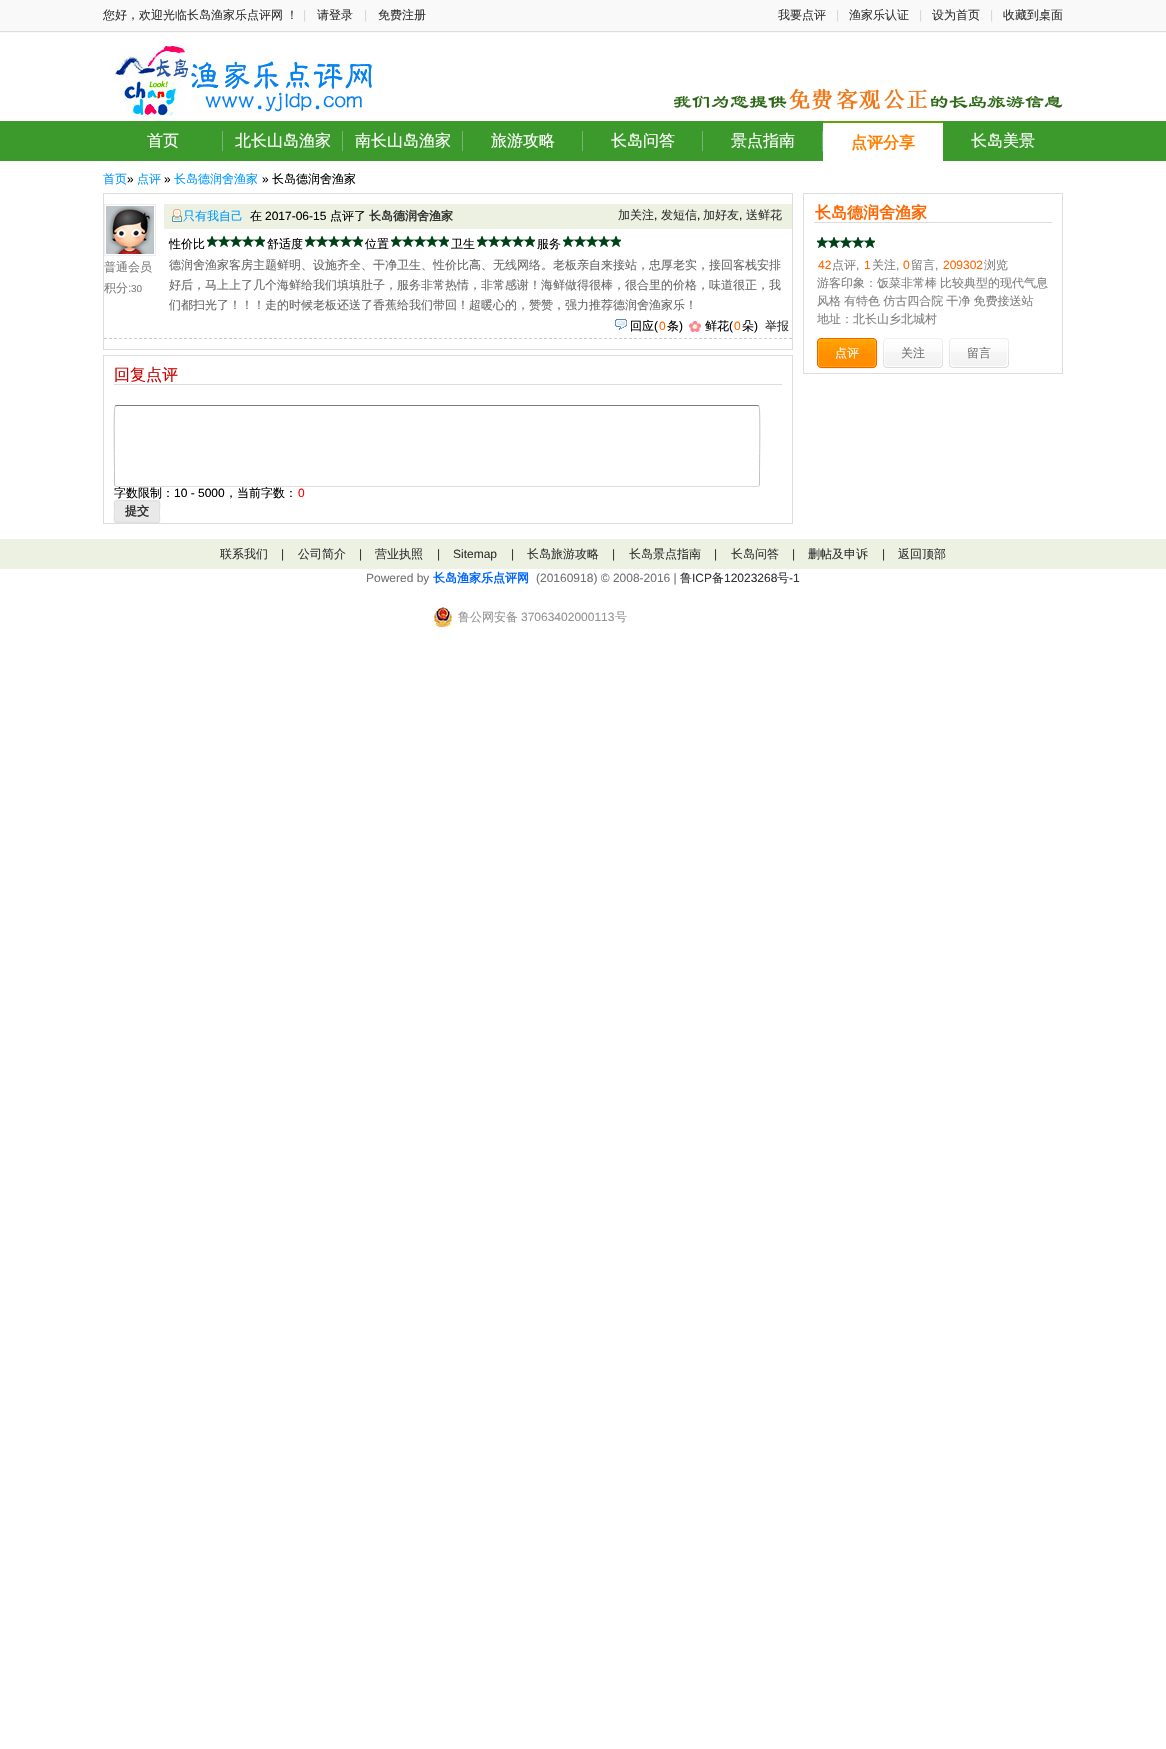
#include "include/core/SkBlurTypes.h"
#include "include/core/SkCanvas.h"
#include "include/core/SkData.h"
#include "include/core/SkFont.h"
#include "include/core/SkFontMgr.h"
#include "include/core/SkImage.h"
#include "include/core/SkMaskFilter.h"
#include "include/core/SkPaint.h"
#include "include/core/SkPathBuilder.h"
#include "include/core/SkTextBlob.h"
#include "include/effects/SkDashPathEffect.h"
#include "include/effects/SkGradientShader.h"
#include "include/utils/SkParsePath.h"

extern sk_sp<SkFontMgr> fontMgr;

void draw(SkCanvas* canvas) {
  SkPaint p;
  p.setAntiAlias(true);
  auto spacedText = [&](const char* s, float x, float y, const SkFont& font, const SkPaint& ink, float letter, float word) {
    std::vector<SkGlyphID> glyphs(font.countText(s, strlen(s), SkTextEncoding::kUTF8));
    std::vector<float> xs(glyphs.size());
    font.textToGlyphs(s, strlen(s), SkTextEncoding::kUTF8, glyphs);
    font.getXPos(glyphs, xs, x);
    float extra = 0;
    for (size_t i = 0; i < glyphs.size(); i++) {
      xs[i] += extra;
      extra += letter + word * (glyphs[i] == font.unicharToGlyph(' '));
    }
    canvas->drawTextBlob(SkTextBlob::MakeFromPosHGlyphs(glyphs, xs, y, font), 0, 0, ink);
  };
  canvas->clear(SK_ColorWHITE);
  p.setColor(SkColorSetRGB(221, 221, 221));
  p.setMaskFilter(SkMaskFilter::MakeBlur(kNormal_SkBlurStyle, 0.5f));
  canvas->drawRect(SkRect::MakeLTRB(0, 1, 1166, 32), p);
  p.setMaskFilter(nullptr);
  p.setColor(SkColorSetRGB(249, 249, 249));
  canvas->drawRect(SkRect::MakeLTRB(0, 0, 1166, 31), p);
  canvas->drawImageRect(SkImages::DeferredFromEncodedData(SkData::MakeFromFileName("images/1.png")), SkRect::MakeLTRB(111, 43, 375, 116), SkSamplingOptions());
  canvas->drawImageRect(SkImages::DeferredFromEncodedData(SkData::MakeFromFileName("images/2.png")), SkRect::MakeLTRB(673, 88, 1063, 110), SkSamplingOptions());
  p.setColor(SkColorSetRGB(60, 154, 44));
  canvas->drawRect(SkRect::MakeLTRB(0, 121, 1166, 161), p);
  p.setColor(SkColorSetRGB(116, 179, 121));
  canvas->drawRect(SkRect::MakeLTRB(222, 131, 223, 151), p);
  canvas->drawRect(SkRect::MakeLTRB(342, 131, 343, 151), p);
  canvas->drawRect(SkRect::MakeLTRB(462, 131, 463, 151), p);
  canvas->drawRect(SkRect::MakeLTRB(582, 131, 583, 151), p);
  canvas->drawRect(SkRect::MakeLTRB(702, 131, 703, 151), p);
  canvas->drawRect(SkRect::MakeLTRB(822, 131, 823, 151), p);
  p.setColor(SK_ColorWHITE);
  canvas->drawRect(SkRect::MakeLTRB(823, 123, 943, 161), p);
  p.setColor(SkColorSetRGB(100, 161, 10));
  canvas->drawRect(SkRect::MakeLTRB(823, 121, 943, 123), p);
  p.setStyle(SkPaint::kStroke_Style);
  p.setStrokeWidth(1);
  p.setColor(SkColorSetRGB(221, 221, 221));
  canvas->drawRect(SkRect::MakeLTRB(103.5f, 193.5f, 792.5f, 349.5f), p);
  p.setColor(SkColorSetRGB(204, 204, 204));
  p.setPathEffect(SkDashPathEffect::Make({{3, 2}}, 0));
  canvas->drawPath(SkPathBuilder().moveTo(104, 338.5f).lineTo(792, 338.5f).detach(), p);
  p.setPathEffect(nullptr);
  p.setColor(SkColorSetRGB(238, 238, 238));
  canvas->drawRect(SkRect::MakeLTRB(104.5f, 204.5f, 155.5f, 255.5f), p);
  canvas->drawImageRect(SkImages::DeferredFromEncodedData(SkData::MakeFromFileName("images/3.png")), SkRect::MakeLTRB(106, 206, 154, 254), SkSamplingOptions());
  p.setStyle(SkPaint::kFill_Style);
  p.setColor(SkColorSetRGB(236, 241, 225));
  canvas->drawRect(SkRect::MakeLTRB(164, 204, 792, 229), p);
  canvas->drawImageRect(SkImages::DeferredFromEncodedData(SkData::MakeFromFileName("images/4.png")), SkRect::MakeLTRB(172, 209, 182, 222), SkSamplingOptions());
  canvas->drawImageRect(SkImages::DeferredFromEncodedData(SkData::MakeFromFileName("images/5.png")), SkRect::MakeLTRB(207, 236, 265, 247), SkSamplingOptions());
  canvas->drawImageRect(SkImages::DeferredFromEncodedData(SkData::MakeFromFileName("images/5.png")), SkRect::MakeLTRB(305, 236, 363, 247), SkSamplingOptions());
  canvas->drawImageRect(SkImages::DeferredFromEncodedData(SkData::MakeFromFileName("images/5.png")), SkRect::MakeLTRB(391, 236, 449, 247), SkSamplingOptions());
  canvas->drawImageRect(SkImages::DeferredFromEncodedData(SkData::MakeFromFileName("images/5.png")), SkRect::MakeLTRB(477, 236, 535, 247), SkSamplingOptions());
  canvas->drawImageRect(SkImages::DeferredFromEncodedData(SkData::MakeFromFileName("images/5.png")), SkRect::MakeLTRB(563, 236, 621, 247), SkSamplingOptions());
  canvas->drawImageRect(SkImages::DeferredFromEncodedData(SkData::MakeFromFileName("images/6.png")), SkRect::MakeLTRB(615, 319, 627, 330), SkSamplingOptions());
  canvas->drawImageRect(SkImages::DeferredFromEncodedData(SkData::MakeFromFileName("images/7.png")), SkRect::MakeLTRB(689, 321, 701, 332), SkSamplingOptions());
  p.setStyle(SkPaint::kStroke_Style);
  p.setColor(SkColorSetRGB(221, 221, 221));
  canvas->drawRect(SkRect::MakeLTRB(103.5f, 355.5f, 792.5f, 523.5f), p);
  p.setStyle(SkPaint::kFill_Style);
  canvas->drawRect(SkRect::MakeLTRB(114, 384, 782, 385), p);
  p.setColor(SkColorSetRGB(233, 233, 233));
  canvas->drawRoundRect(SkRect::MakeLTRB(114, 500, 160, 523), 2, 2, p);
  p.setStyle(SkPaint::kStroke_Style);
  p.setColor(SkColorSetRGB(222, 222, 222));
  canvas->drawPath(SkPathBuilder().moveTo(159, 501).cubicTo(160.5f, 502, 159.5f, 509.5f, 159.5f, 511.5f).cubicTo(159.5f, 524, 162, 522.5f, 151, 522.5f).lineTo(115, 522).detach(), p);
  p.setColor(SkColorSetRGB(221, 221, 221));
  canvas->drawPath(SkPathBuilder().moveTo(115, 522).cubicTo(113.5f, 521, 114.5f, 513.5f, 114.5f, 511.5f).cubicTo(114.5f, 499, 112, 500.5f, 123, 500.5f).lineTo(159, 501).detach(), p);
  canvas->drawRect(SkRect::MakeLTRB(803.5f, 193.5f, 1062.5f, 373.5f), p);
  p.setStyle(SkPaint::kFill_Style);
  canvas->drawRect(SkRect::MakeLTRB(814, 222, 1052, 223), p);
  canvas->drawImageRect(SkImages::DeferredFromEncodedData(SkData::MakeFromFileName("images/5.png")), SkRect::MakeLTRB(817, 237, 875, 248), SkSamplingOptions());
  canvas->drawImageRect(SkImages::DeferredFromEncodedData(SkData::MakeFromFileName("images/8.png")), SkRect::MakeLTRB(873, 338, 877, 368), SkSamplingOptions());
  canvas->drawImageRect(SkImages::DeferredFromEncodedData(SkData::MakeFromFileName("images/9.png")), SkRect::MakeLTRB(817, 338, 873, 369), SkSamplingOptions());
  canvas->drawImageRect(SkImages::DeferredFromEncodedData(SkData::MakeFromFileName("images/10.png")), SkRect::MakeLTRB(939, 338, 943, 368), SkSamplingOptions());
  canvas->drawImageRect(SkImages::DeferredFromEncodedData(SkData::MakeFromFileName("images/11.png")), SkRect::MakeLTRB(883, 338, 939, 368), SkSamplingOptions());
  canvas->drawImageRect(SkImages::DeferredFromEncodedData(SkData::MakeFromFileName("images/10.png")), SkRect::MakeLTRB(1005, 338, 1009, 368), SkSamplingOptions());
  canvas->drawImageRect(SkImages::DeferredFromEncodedData(SkData::MakeFromFileName("images/11.png")), SkRect::MakeLTRB(949, 338, 1005, 368), SkSamplingOptions());
  p.setColor(SkColorSetRGB(236, 241, 225));
  canvas->drawRect(SkRect::MakeLTRB(0, 539, 1166, 569), p);
  canvas->drawImageRect(SkImages::DeferredFromEncodedData(SkData::MakeFromFileName("images/12.png")), SkRect::MakeLTRB(434, 607, 452, 627), SkSamplingOptions());
  SkFont font1(fontMgr->matchFamilyStyle("WenQuanYi Zen Hei", SkFontStyle(500, SkFontStyle::kNormal_Width, SkFontStyle::kUpright_Slant)), 12);
  font1.setSubpixel(true);
  p.setColor(SkColorSetRGB(51, 51, 51));
  spacedText("您好，欢迎光临长岛渔家乐点评网 ！", 103, 19, font1, p, 0, -0.5f);
  SkFont font2(fontMgr->matchFamilyStyle("Liberation Sans", SkFontStyle::Normal()), 12);
  font2.setSubpixel(true);
  p.setColor(SkColorSetRGB(223, 211, 211));
  canvas->drawString("|", 303, 19, font2, p);
  p.setColor(SkColorSetRGB(51, 51, 51));
  canvas->drawString("请登录", 317, 19, font1, p);
  p.setColor(SkColorSetRGB(223, 211, 211));
  canvas->drawString("|", 364, 19, font2, p);
  p.setColor(SkColorSetRGB(51, 51, 51));
  canvas->drawString("免费注册", 378, 19, font1, p);
  canvas->drawString("我要点评", 778, 19, font1, p);
  p.setColor(SkColorSetRGB(223, 211, 211));
  canvas->drawString("|", 836, 19, font2, p);
  p.setColor(SkColorSetRGB(51, 51, 51));
  canvas->drawString("渔家乐认证", 849, 19, font1, p);
  p.setColor(SkColorSetRGB(223, 211, 211));
  canvas->drawString("|", 919, 19, font2, p);
  p.setColor(SkColorSetRGB(51, 51, 51));
  canvas->drawString("设为首页", 932, 19, font1, p);
  p.setColor(SkColorSetRGB(223, 211, 211));
  canvas->drawString("|", 990, 19, font2, p);
  p.setColor(SkColorSetRGB(51, 51, 51));
  canvas->drawString("收藏到桌面", 1003, 19, font1, p);
  SkFont font3(fontMgr->matchFamilyStyle("WenQuanYi Zen Hei", SkFontStyle(500, SkFontStyle::kNormal_Width, SkFontStyle::kUpright_Slant)), 16);
  font3.setSubpixel(true);
  p.setColor(SK_ColorWHITE);
  canvas->drawString("首页", 147, 146, font3, p);
  canvas->drawString("北长山岛渔家", 235, 146, font3, p);
  canvas->drawString("南长山岛渔家", 355, 146, font3, p);
  canvas->drawString("旅游攻略", 491, 146, font3, p);
  canvas->drawString("长岛问答", 611, 146, font3, p);
  canvas->drawString("景点指南", 731, 146, font3, p);
  SkFont font4(fontMgr->matchFamilyStyle("WenQuanYi Zen Hei", SkFontStyle::Bold()), 16);
  font4.setSubpixel(true);
  p.setColor(SkColorSetRGB(255, 128, 0));
  canvas->drawString("点评分享", 851, 148, font4, p);
  p.setColor(SK_ColorWHITE);
  canvas->drawString("长岛美景", 971, 146, font3, p);
  p.setColor(SkColorSetRGB(0, 153, 255));
  canvas->drawString("首页", 103, 183, font1, p);
  p.setColor(SK_ColorBLACK);
  canvas->drawString("»", 127, 183, font2, p);
  p.setColor(SkColorSetRGB(0, 153, 255));
  canvas->drawString("点评", 137, 183, font1, p);
  p.setColor(SK_ColorBLACK);
  canvas->drawString("»", 164, 183, font2, p);
  p.setColor(SkColorSetRGB(0, 153, 255));
  canvas->drawString("长岛德润舍渔家", 174, 183, font1, p);
  p.setColor(SK_ColorBLACK);
  canvas->drawString("»", 262, 183, font2, p);
  canvas->drawString("长岛德润舍渔家", 272, 183, font1, p);
  p.setColor(SkColorSetRGB(128, 128, 128));
  canvas->drawString("普通会员", 104, 271, font1, p);
  canvas->drawString("积分", 104, 292, font1, p);
  canvas->drawString(":", 128, 292, font2, p);
  SkFont font5(fontMgr->matchFamilyStyle("Liberation Sans", SkFontStyle::Normal()), 10);
  font5.setSubpixel(true);
  canvas->drawString("30", 131, 292, font5, p);
  p.setColor(SkColorSetRGB(0, 153, 255));
  canvas->drawString("只有我自己", 183, 220, font1, p);
  p.setColor(SK_ColorBLACK);
  canvas->drawString("在", 250, 220, font1, p);
  canvas->drawString("2017-06-15", 265, 220, font2, p);
  canvas->drawString("点评了", 330, 220, font1, p);
  SkFont font6(fontMgr->matchFamilyStyle("WenQuanYi Zen Hei", SkFontStyle::Bold()), 12);
  font6.setSubpixel(true);
  p.setColor(SkColorSetRGB(51, 51, 51));
  canvas->drawString("长岛德润舍渔家", 369, 220, font6, p);
  canvas->drawString("加关注", 618, 219, font1, p);
  p.setColor(SK_ColorBLACK);
  canvas->drawString(",", 654, 219, font2, p);
  p.setColor(SkColorSetRGB(51, 51, 51));
  canvas->drawString("发短信", 661, 219, font1, p);
  p.setColor(SK_ColorBLACK);
  canvas->drawString(",", 697, 219, font2, p);
  p.setColor(SkColorSetRGB(51, 51, 51));
  canvas->drawString("加好友", 703, 219, font1, p);
  p.setColor(SK_ColorBLACK);
  canvas->drawString(",", 739, 219, font2, p);
  p.setColor(SkColorSetRGB(51, 51, 51));
  canvas->drawString("送鲜花", 746, 219, font1, p);
  p.setColor(SK_ColorBLACK);
  canvas->drawString("性价比", 169, 248, font1, p);
  canvas->drawString("舒适度", 267, 248, font1, p);
  canvas->drawString("位置", 365, 248, font1, p);
  canvas->drawString("卫生", 451, 248, font1, p);
  canvas->drawString("服务", 537, 248, font1, p);
  p.setColor(SkColorSetRGB(102, 102, 102));
  canvas->drawString("德润舍渔家客房主题鲜明、设施齐全、干净卫生、性价比高、无线网络。老板亲自来接站，忠厚老实，接回客栈安排", 169, 269, font1, p);
  canvas->drawString("好后，马上上了几个海鲜给我们填填肚子，服务非常热情，非常感谢！海鲜做得很棒，很合里的价格，味道很正，我", 169, 289, font1, p);
  canvas->drawString("们都扫光了！！！走的时候老板还送了香蕉给我们带回！超暖心的，赞赞，强力推荐德润舍渔家乐！", 169, 309, font1, p);
  p.setColor(SK_ColorBLACK);
  canvas->drawString("回应", 630, 330, font1, p);
  canvas->drawString("(", 654, 330, font2, p);
  p.setColor(SkColorSetRGB(255, 102, 0));
  canvas->drawString("0", 659, 330, font2, p);
  p.setColor(SK_ColorBLACK);
  canvas->drawString("条", 667, 330, font1, p);
  canvas->drawString(")", 679, 330, font2, p);
  canvas->drawString("鲜花", 705, 330, font1, p);
  canvas->drawString("(", 729, 330, font2, p);
  p.setColor(SkColorSetRGB(255, 102, 0));
  canvas->drawString("0", 734, 330, font2, p);
  p.setColor(SK_ColorBLACK);
  canvas->drawString("朵", 742, 330, font1, p);
  canvas->drawString(")", 754, 330, font2, p);
  p.setColor(SkColorSetRGB(51, 51, 51));
  canvas->drawString("举报", 765, 330, font1, p);
  p.setColor(SkColorSetRGB(204, 0, 0));
  canvas->drawString("回复点评", 114, 380, font3, p);
  p.setColor(SK_ColorBLACK);
  canvas->drawString("字数限制：", 114, 497, font1, p);
  canvas->drawString("10 - 5000", 174, 497, font2, p);
  canvas->drawString("，当前字数：", 225, 497, font1, p);
  p.setColor(SK_ColorWHITE);
  canvas->drawRoundRect(SkRect::MakeLTRB(114, 405, 760, 487), 3, 3, p);
  p.setStyle(SkPaint::kStroke_Style);
  p.setColor(SkColorSetRGB(124, 124, 124));
  canvas->drawPath(SkPathBuilder().moveTo(115, 406).lineTo(117, 405.5f).lineTo(757, 405.5f).lineTo(759, 406).detach(), p);
  p.setColor(SkColorSetRGB(195, 195, 195));
  canvas->drawPath(SkPathBuilder().moveTo(759, 406).lineTo(759, 406.5f).cubicTo(760.5f, 408.5f, 759.5f, 464.5f, 759.5f, 471.5f).lineTo(759.5f, 484).lineTo(759, 486).detach(), p);
  p.setColor(SkColorSetRGB(221, 221, 221));
  canvas->drawPath(SkPathBuilder().moveTo(759, 486).lineTo(757, 486.5f).lineTo(117, 486.5f).lineTo(115, 486).detach(), p);
  p.setColor(SkColorSetRGB(195, 195, 195));
  canvas->drawPath(SkPathBuilder().moveTo(115, 486).lineTo(114.5f, 484).lineTo(114.5f, 471.5f).cubicTo(114.5f, 464.5f, 113.5f, 408.5f, 115, 406.5f).lineTo(115, 406).detach(), p);
  p.setStyle(SkPaint::kFill_Style);
  p.setColor(SkColorSetRGB(255, 0, 0));
  canvas->drawString("0", 298, 497, font2, p);
  p.setColor(SkColorSetRGB(51, 51, 51));
  canvas->drawString("提交", 125, 515, font6, p);
  p.setColor(SkColorSetRGB(255, 102, 0));
  canvas->drawString("长岛德润舍渔家", 815, 218, font4, p);
  canvas->drawString("42", 818, 269, font2, p);
  p.setColor(SkColorSetRGB(128, 128, 128));
  canvas->drawString("点评", 832, 269, font1, p);
  canvas->drawString(",", 856, 269, font2, p);
  p.setColor(SkColorSetRGB(255, 102, 0));
  canvas->drawString("1", 864, 269, font2, p);
  p.setColor(SkColorSetRGB(128, 128, 128));
  canvas->drawString("关注", 872, 269, font1, p);
  canvas->drawString(",", 896, 269, font2, p);
  p.setColor(SkColorSetRGB(255, 102, 0));
  canvas->drawString("0", 903, 269, font2, p);
  p.setColor(SkColorSetRGB(128, 128, 128));
  canvas->drawString("留言", 911, 269, font1, p);
  canvas->drawString(",", 935, 269, font2, p);
  p.setColor(SkColorSetRGB(255, 102, 0));
  canvas->drawString("209302", 943, 269, font2, p);
  p.setColor(SkColorSetRGB(128, 128, 128));
  canvas->drawString("浏览", 984, 269, font1, p);
  spacedText("游客印象：饭菜非常棒 比较典型的现代气息", 817, 287, font1, p, 0, -0.5f);
  spacedText("风格 有特色 仿古四合院 干净 免费接送站", 817, 305, font1, p, 0, -0.5f);
  canvas->drawString("地址：北长山乡北城村", 817, 323, font1, p);
  p.setColor(SK_ColorWHITE);
  canvas->drawString("点评", 835, 357, font1, p);
  p.setColor(SkColorSetRGB(115, 115, 115));
  canvas->drawString("关注", 901, 357, font1, p);
  canvas->drawString("留言", 967, 357, font1, p);
  p.setColor(SkColorSetRGB(51, 51, 51));
  canvas->drawString("联系我们", 220, 558, font1, p);
  canvas->drawString("|", 281, 558, font2, p);
  canvas->drawString("公司简介", 298, 558, font1, p);
  canvas->drawString("|", 359, 558, font2, p);
  canvas->drawString("营业执照", 375, 558, font1, p);
  canvas->drawString("|", 437, 558, font2, p);
  canvas->drawString("Sitemap", 453, 558, font2, p);
  canvas->drawString("|", 511, 558, font2, p);
  canvas->drawString("长岛旅游攻略", 527, 558, font1, p);
  canvas->drawString("|", 612, 558, font2, p);
  canvas->drawString("长岛景点指南", 629, 558, font1, p);
  canvas->drawString("|", 714, 558, font2, p);
  canvas->drawString("长岛问答", 731, 558, font1, p);
  canvas->drawString("|", 792, 558, font2, p);
  canvas->drawString("删帖及申诉", 808, 558, font1, p);
  canvas->drawString("|", 882, 558, font2, p);
  canvas->drawString("返回顶部", 898, 558, font1, p);
  p.setColor(SkColorSetRGB(115, 115, 115));
  canvas->drawString("Powered by", 366, 582, font2, p);
  p.setColor(SkColorSetRGB(0, 102, 255));
  canvas->drawString("长岛渔家乐点评网", 433, 582, font6, p);
  p.setColor(SkColorSetRGB(115, 115, 115));
  canvas->drawString("(20160918) © 2008-2016 |", 536, 582, font2, p);
  p.setColor(SkColorSetRGB(51, 51, 51));
  canvas->drawString("鲁", 680, 582, font1, p);
  canvas->drawString("ICP", 692, 582, font2, p);
  canvas->drawString("备", 712, 582, font1, p);
  canvas->drawString("12023268", 724, 582, font2, p);
  canvas->drawString("号", 777, 582, font1, p);
  canvas->drawString("-1", 789, 582, font2, p);
  p.setColor(SkColorSetRGB(147, 147, 147));
  canvas->drawString("鲁公网安备", 458, 621, font1, p);
  canvas->drawString("37063402000113", 521, 621, font2, p);
  canvas->drawString("号", 615, 621, font1, p);
}
